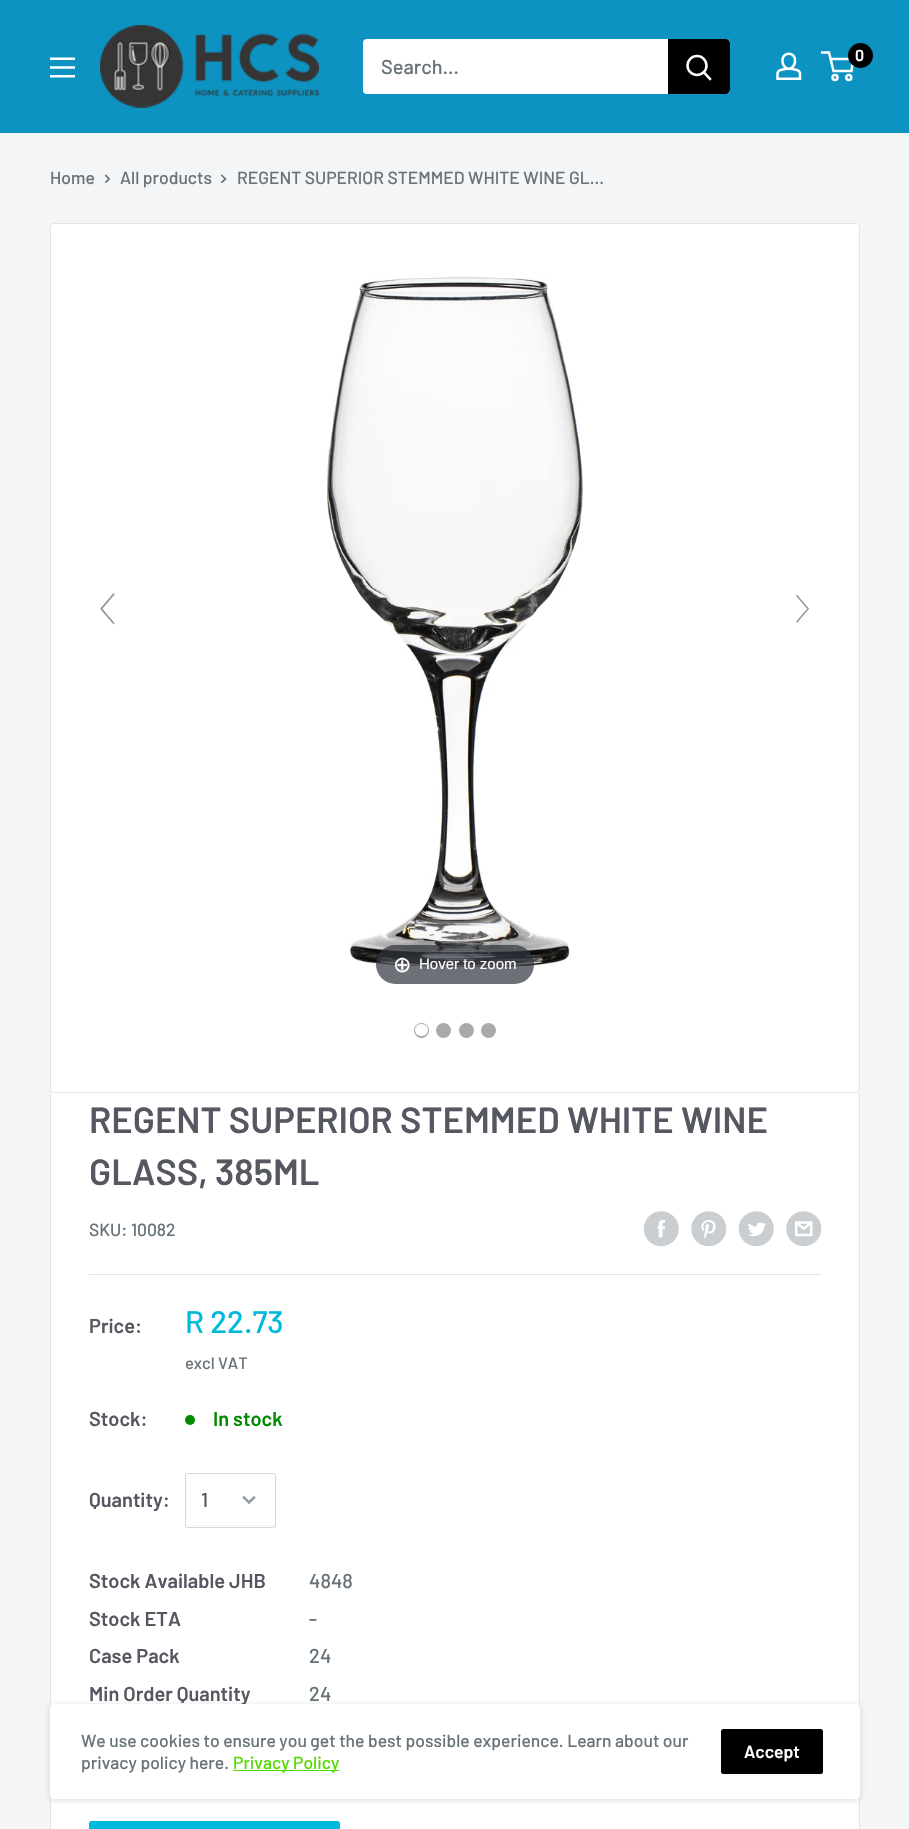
#include "include/core/SkBlurTypes.h"
#include "include/core/SkCanvas.h"
#include "include/core/SkData.h"
#include "include/core/SkFont.h"
#include "include/core/SkFontMgr.h"
#include "include/core/SkImage.h"
#include "include/core/SkMaskFilter.h"
#include "include/core/SkPaint.h"
#include "include/core/SkPathBuilder.h"
#include "include/core/SkTextBlob.h"
#include "include/effects/SkDashPathEffect.h"
#include "include/effects/SkGradientShader.h"
#include "include/utils/SkParsePath.h"

extern sk_sp<SkFontMgr> fontMgr;

void draw(SkCanvas* canvas) {
  SkPaint p;
  p.setAntiAlias(true);
  canvas->clear(SkColorSetRGB(243, 245, 246));
  p.setColor(SkColorSetRGB(13, 147, 193));
  canvas->drawRect(SkRect::MakeLTRB(0, 0, 909, 133), p);
  canvas->drawImageRect(SkImages::DeferredFromEncodedData(SkData::MakeFromFileName("images/1.png")), SkRect::MakeLTRB(100, 25, 319, 108), SkSamplingOptions());
  canvas->drawImageRect(SkImages::DeferredFromEncodedData(SkData::MakeFromFileName("images/2.png")), SkRect::MakeLTRB(776, 52, 802, 80), SkSamplingOptions());
  p.setStyle(SkPaint::kStroke_Style);
  p.setStrokeWidth(2.5f);
  p.setColor(SK_ColorWHITE);
  canvas->drawCircle(835, 77.5f, 2.5f, p);
  canvas->drawCircle(848.8f, 77.5f, 2.5f, p);
  canvas->drawPath(SkPathBuilder().moveTo(830.5f, 59).lineTo(853, 59).lineTo(851.5f, 71).lineTo(833.5f, 71).lineTo(829, 52.5f).lineTo(821, 52.5f).detach(), p);
  p.setStyle(SkPaint::kFill_Style);
  p.setColor(SK_ColorBLACK);
  canvas->drawCircle(860.5f, 55.5f, 12.5f, p);
  canvas->drawImageRect(SkImages::DeferredFromEncodedData(SkData::MakeFromFileName("images/3.png")), SkRect::MakeLTRB(50, 57, 75, 78), SkSamplingOptions());
  p.setColor(SK_ColorWHITE);
  canvas->drawRoundRect(SkRect::MakeLTRB(363, 39, 730, 94), 4, 4, p);
  p.setColor(SK_ColorBLACK);
  canvas->drawPath(SkPathBuilder().moveTo(668, 39).lineTo(726, 39).cubicTo(728, 39, 730, 41, 730, 43).lineTo(730, 90).cubicTo(730, 92, 728, 94, 726, 94).lineTo(668, 94).close().detach(), p);
  p.setStyle(SkPaint::kStroke_Style);
  p.setStrokeCap(SkPaint::kSquare_Cap);
  p.setColor(SK_ColorWHITE);
  canvas->drawPath(SkPathBuilder().moveTo(710, 79).lineTo(704, 72.5f).detach(), p);
  p.setStrokeCap(SkPaint::kButt_Cap);
  canvas->drawCircle(697, 65.5f, 9.5f, p);
  p.setStrokeWidth(1.7f);
  p.setStrokeCap(SkPaint::kSquare_Cap);
  p.setColor(SkColorSetRGB(103, 114, 121));
  canvas->drawPath(SkPathBuilder().moveTo(106, 175.5f).lineTo(109, 179).lineTo(106, 182).detach(), p);
  canvas->drawPath(SkPathBuilder().moveTo(222, 175.5f).lineTo(225.5f, 179).lineTo(222, 182).detach(), p);
  p.setStyle(SkPaint::kFill_Style);
  p.setColor(SK_ColorWHITE);
  canvas->drawRoundRect(SkRect::MakeLTRB(50.5f, 223.5f, 859.5f, 1092.5f), 3.5f, 3.5f, p);
  p.setStyle(SkPaint::kStroke_Style);
  p.setStrokeWidth(1);
  p.setStrokeCap(SkPaint::kButt_Cap);
  p.setColor(SkColorSetRGB(225, 227, 228));
  canvas->drawRoundRect(SkRect::MakeLTRB(50.5f, 223.5f, 859.5f, 1092.5f), 3.5f, 3.5f, p);
  canvas->drawImageRect(SkImages::DeferredFromEncodedData(SkData::MakeFromFileName("images/4.png")), SkRect::MakeLTRB(100, 593, 115, 625), SkSamplingOptions());
  canvas->drawImageRect(SkImages::DeferredFromEncodedData(SkData::MakeFromFileName("images/5.png")), SkRect::MakeLTRB(796, 595, 809, 623), SkSamplingOptions());
  canvas->drawImageRect(SkImages::DeferredFromEncodedData(SkData::MakeFromFileName("images/6.png")), SkRect::MakeLTRB(326, 276, 583, 968), SkSamplingOptions());
  p.setStyle(SkPaint::kFill_Style);
  p.setColor(SkColorSetARGB(179, 49, 51, 61));
  canvas->drawRoundRect(SkRect::MakeLTRB(376, 945, 534, 984), 19.5f, 19.5f, p);
  p.setColor(SkColorSetRGB(170, 170, 170));
  canvas->drawCircle(421.5f, 1030.5f, 7.5f, p);
  p.setColor(SK_ColorWHITE);
  canvas->drawRoundRect(SkRect::MakeLTRB(415, 1024, 428, 1036), 6, 6, p);
  p.setColor(SkColorSetRGB(170, 170, 170));
  canvas->drawCircle(443.5f, 1030.5f, 7.5f, p);
  canvas->drawCircle(466.5f, 1030.5f, 7.5f, p);
  canvas->drawCircle(488.5f, 1030.5f, 7.5f, p);
  p.setColor(SK_ColorWHITE);
  canvas->drawPath(SkPathBuilder().moveTo(54, 1091).cubicTo(51, 1091, 50, 1094, 50, 1096).cubicTo(50, 1094, 52, 1092, 54, 1092).lineTo(856, 1092).cubicTo(858, 1092, 860, 1094, 860, 1096).cubicTo(860, 1094, 859, 1091, 856, 1091).close().detach(), p);
  canvas->drawRoundRect(SkRect::MakeLTRB(50, 1093, 860, 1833), 4, 4, p);
  p.setColor(SkColorSetRGB(225, 227, 228));
  canvas->drawPath(SkPathBuilder(SkPathFillType::kEvenOdd).moveTo(54, 1092).lineTo(856, 1092).cubicTo(858, 1092, 860, 1094, 860, 1096).lineTo(860, 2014).cubicTo(860, 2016, 858, 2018, 856, 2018).lineTo(54, 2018).cubicTo(52, 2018, 50, 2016, 50, 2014).lineTo(50, 1096).cubicTo(50, 1094, 52, 1092, 54, 1092).close().moveTo(54, 1092).lineTo(856, 1092).cubicTo(858, 1092, 859, 1094, 859, 1096).lineTo(859, 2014).cubicTo(859, 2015, 858, 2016, 856, 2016).lineTo(54, 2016).cubicTo(52, 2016, 51, 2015, 51, 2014).lineTo(51, 1096).cubicTo(51, 1094, 52, 1092, 54, 1092).close().detach(), p);
  canvas->drawImageRect(SkImages::DeferredFromEncodedData(SkData::MakeFromFileName("images/7.png")), SkRect::MakeLTRB(643, 1211, 679, 1247), SkSamplingOptions());
  canvas->drawImageRect(SkImages::DeferredFromEncodedData(SkData::MakeFromFileName("images/8.png")), SkRect::MakeLTRB(691, 1211, 727, 1247), SkSamplingOptions());
  canvas->drawImageRect(SkImages::DeferredFromEncodedData(SkData::MakeFromFileName("images/9.png")), SkRect::MakeLTRB(738, 1211, 774, 1247), SkSamplingOptions());
  canvas->drawImageRect(SkImages::DeferredFromEncodedData(SkData::MakeFromFileName("images/10.png")), SkRect::MakeLTRB(786, 1211, 822, 1247), SkSamplingOptions());
  canvas->drawRect(SkRect::MakeLTRB(89, 1274, 821, 1275), p);
  p.setColor(SkColorSetRGB(0, 138, 0));
  canvas->drawCircle(190, 1420, 5, p);
  p.setColor(SkColorSetRGB(242, 243, 243));
  canvas->drawPath(SkPathBuilder().moveTo(186, 1524).cubicTo(186, 1525, 186, 1526, 187, 1526).lineTo(274, 1526).cubicTo(275, 1526, 275, 1525, 275, 1524).lineTo(274, 1525).lineTo(193, 1525).cubicTo(191, 1525, 187, 1526, 186, 1524).close().detach(), p);
  p.setStyle(SkPaint::kStroke_Style);
  p.setColor(SkColorSetRGB(212, 214, 216));
  canvas->drawRoundRect(SkRect::MakeLTRB(185.5f, 1473.5f, 275.5f, 1527.5f), 2, 2, p);
  p.setStrokeWidth(2.5f);
  p.setStrokeCap(SkPaint::kSquare_Cap);
  p.setColor(SkColorSetRGB(149, 156, 161));
  canvas->drawPath(SkPathBuilder().moveTo(254, 1497.5f).lineTo(249, 1502.5f).lineTo(244, 1497.5f).detach(), p);
  p.setStyle(SkPaint::kFill_Style);
  p.setColor(SkColorSetRGB(0, 186, 219));
  canvas->drawRoundRect(SkRect::MakeLTRB(89, 1821, 340, 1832), 2.5f, 2.5f, p);
  p.setColor(SkColorSetARGB(26, 0, 0, 0));
  p.setMaskFilter(SkMaskFilter::MakeBlur(kNormal_SkBlurStyle, 2.5f));
  canvas->drawRoundRect(SkRect::MakeLTRB(49, 1704, 861, 1801), 5, 5, p);
  p.setMaskFilter(nullptr);
  SkFont font1(fontMgr->matchFamilyStyle("Barlow", SkFontStyle(600, SkFontStyle::kNormal_Width, SkFontStyle::kUpright_Slant)), 16);
  font1.setSubpixel(true);
  p.setColor(SK_ColorWHITE);
  canvas->drawString("0", 855, 61, font1, p);
  SkFont font2(fontMgr->matchFamilyStyle("Barlow", SkFontStyle(500, SkFontStyle::kNormal_Width, SkFontStyle::kUpright_Slant)), 20);
  font2.setSubpixel(true);
  p.setColor(SkColorSetRGB(103, 114, 121));
  canvas->drawString("Search...", 381, 74, font2, p);
  SkFont font3(fontMgr->matchFamilyStyle("Barlow", SkFontStyle(500, SkFontStyle::kNormal_Width, SkFontStyle::kUpright_Slant)), 17.5f);
  font3.setSubpixel(true);
  canvas->drawString("Home", 50, 184, font3, p);
  canvas->drawString("All products", 120, 184, font3, p);
  canvas->drawString("REGENT SUPERIOR STEMMED WHITE WINE GL...", 237, 184, font3, p);
  SkFont font4(fontMgr->matchFamilyStyle("DejaVu Sans", SkFontStyle::Normal()), 22);
  font4.setSubpixel(true);
  p.setColor(SK_ColorWHITE);
  canvas->drawString("⊕", 393, 972, font4, p);
  SkFont font5(fontMgr->matchFamilyStyle("Liberation Sans", SkFontStyle::Normal()), 15);
  font5.setSubpixel(true);
  canvas->drawString("Hover to zoom", 419, 969, font5, p);
  SkFont font6(fontMgr->matchFamilyStyle("Barlow", SkFontStyle(600, SkFontStyle::kNormal_Width, SkFontStyle::kUpright_Slant)), 36.25f);
  font6.setSubpixel(true);
  p.setColor(SkColorSetRGB(86, 88, 97));
  canvas->drawString("REGENT SUPERIOR STEMMED WHITE WINE", 89, 1133, font6, p);
  canvas->drawString("GLASS, 385ML", 89, 1185, font6, p);
  p.setColor(SkColorSetRGB(103, 114, 121));
  canvas->drawString("SKU: 10082", 89, 1236, font3, p);
  SkFont font7(fontMgr->matchFamilyStyle("Barlow", SkFontStyle(600, SkFontStyle::kNormal_Width, SkFontStyle::kUpright_Slant)), 20);
  font7.setSubpixel(true);
  p.setColor(SkColorSetRGB(86, 88, 97));
  canvas->drawString("Price:", 89, 1333, font7, p);
  SkFont font8(fontMgr->matchFamilyStyle("Barlow", SkFontStyle(500, SkFontStyle::kNormal_Width, SkFontStyle::kUpright_Slant)), 31);
  font8.setSubpixel(true);
  p.setColor(SkColorSetRGB(0, 186, 219));
  canvas->drawString("R 22.73", 185, 1333, font8, p);
  SkFont font9(fontMgr->matchFamilyStyle("Barlow", SkFontStyle(500, SkFontStyle::kNormal_Width, SkFontStyle::kUpright_Slant)), 16.5f);
  font9.setSubpixel(true);
  p.setColor(SkColorSetRGB(103, 114, 121));
  canvas->drawString("excl VAT", 185, 1369, font9, p);
  p.setColor(SkColorSetRGB(86, 88, 97));
  canvas->drawString("Stock:", 89, 1426, font7, p);
  p.setColor(SkColorSetRGB(0, 138, 0));
  canvas->drawString("In stock", 213, 1426, font7, p);
  p.setColor(SkColorSetRGB(86, 88, 97));
  canvas->drawString("Quantity:", 89, 1507, font7, p);
  canvas->drawString("1", 201, 1507, font2, p);
  canvas->drawString("Stock Available JHB", 89, 1588, font7, p);
  p.setColor(SkColorSetRGB(103, 114, 121));
  canvas->drawString("4848", 309, 1588, font2, p);
  p.setColor(SkColorSetRGB(86, 88, 97));
  canvas->drawString("Stock ETA", 89, 1626, font7, p);
  p.setColor(SkColorSetRGB(103, 114, 121));
  canvas->drawString("-", 309, 1626, font2, p);
  p.setColor(SkColorSetRGB(86, 88, 97));
  canvas->drawString("Case Pack", 89, 1663, font7, p);
  p.setColor(SkColorSetRGB(103, 114, 121));
  canvas->drawString("24", 309, 1663, font2, p);
  p.setColor(SkColorSetRGB(86, 88, 97));
  canvas->drawString("Min Order Quantity", 89, 1701, font7, p);
  p.setColor(SkColorSetRGB(103, 114, 121));
  canvas->drawString("24", 309, 1701, font2, p);
  p.setColor(SK_ColorWHITE);
  canvas->drawRoundRect(SkRect::MakeLTRB(50, 1704, 860, 1799), 4, 4, p);
  p.setColor(SkColorSetRGB(103, 114, 121));
  canvas->drawString("We use cookies to ensure you get the best possible experience. Learn about our", 81, 1747, font3, p);
  canvas->drawString("privacy policy here.", 81, 1769, font3, p);
  p.setColor(SkColorSetRGB(86, 219, 0));
  canvas->drawRect(SkRect::MakeLTRB(233, 1770, 339, 1771), p);
  canvas->drawString("Privacy Policy", 233, 1769, font3, p);
  p.setColor(SK_ColorBLACK);
  canvas->drawRoundRect(SkRect::MakeLTRB(721, 1729, 823, 1774), 2.5f, 2.5f, p);
  SkFont font10(fontMgr->matchFamilyStyle("Barlow", SkFontStyle(600, SkFontStyle::kNormal_Width, SkFontStyle::kUpright_Slant)), 17.5f);
  font10.setSubpixel(true);
  p.setColor(SK_ColorWHITE);
  canvas->drawString("Accept", 744, 1758, font10, p);
}
